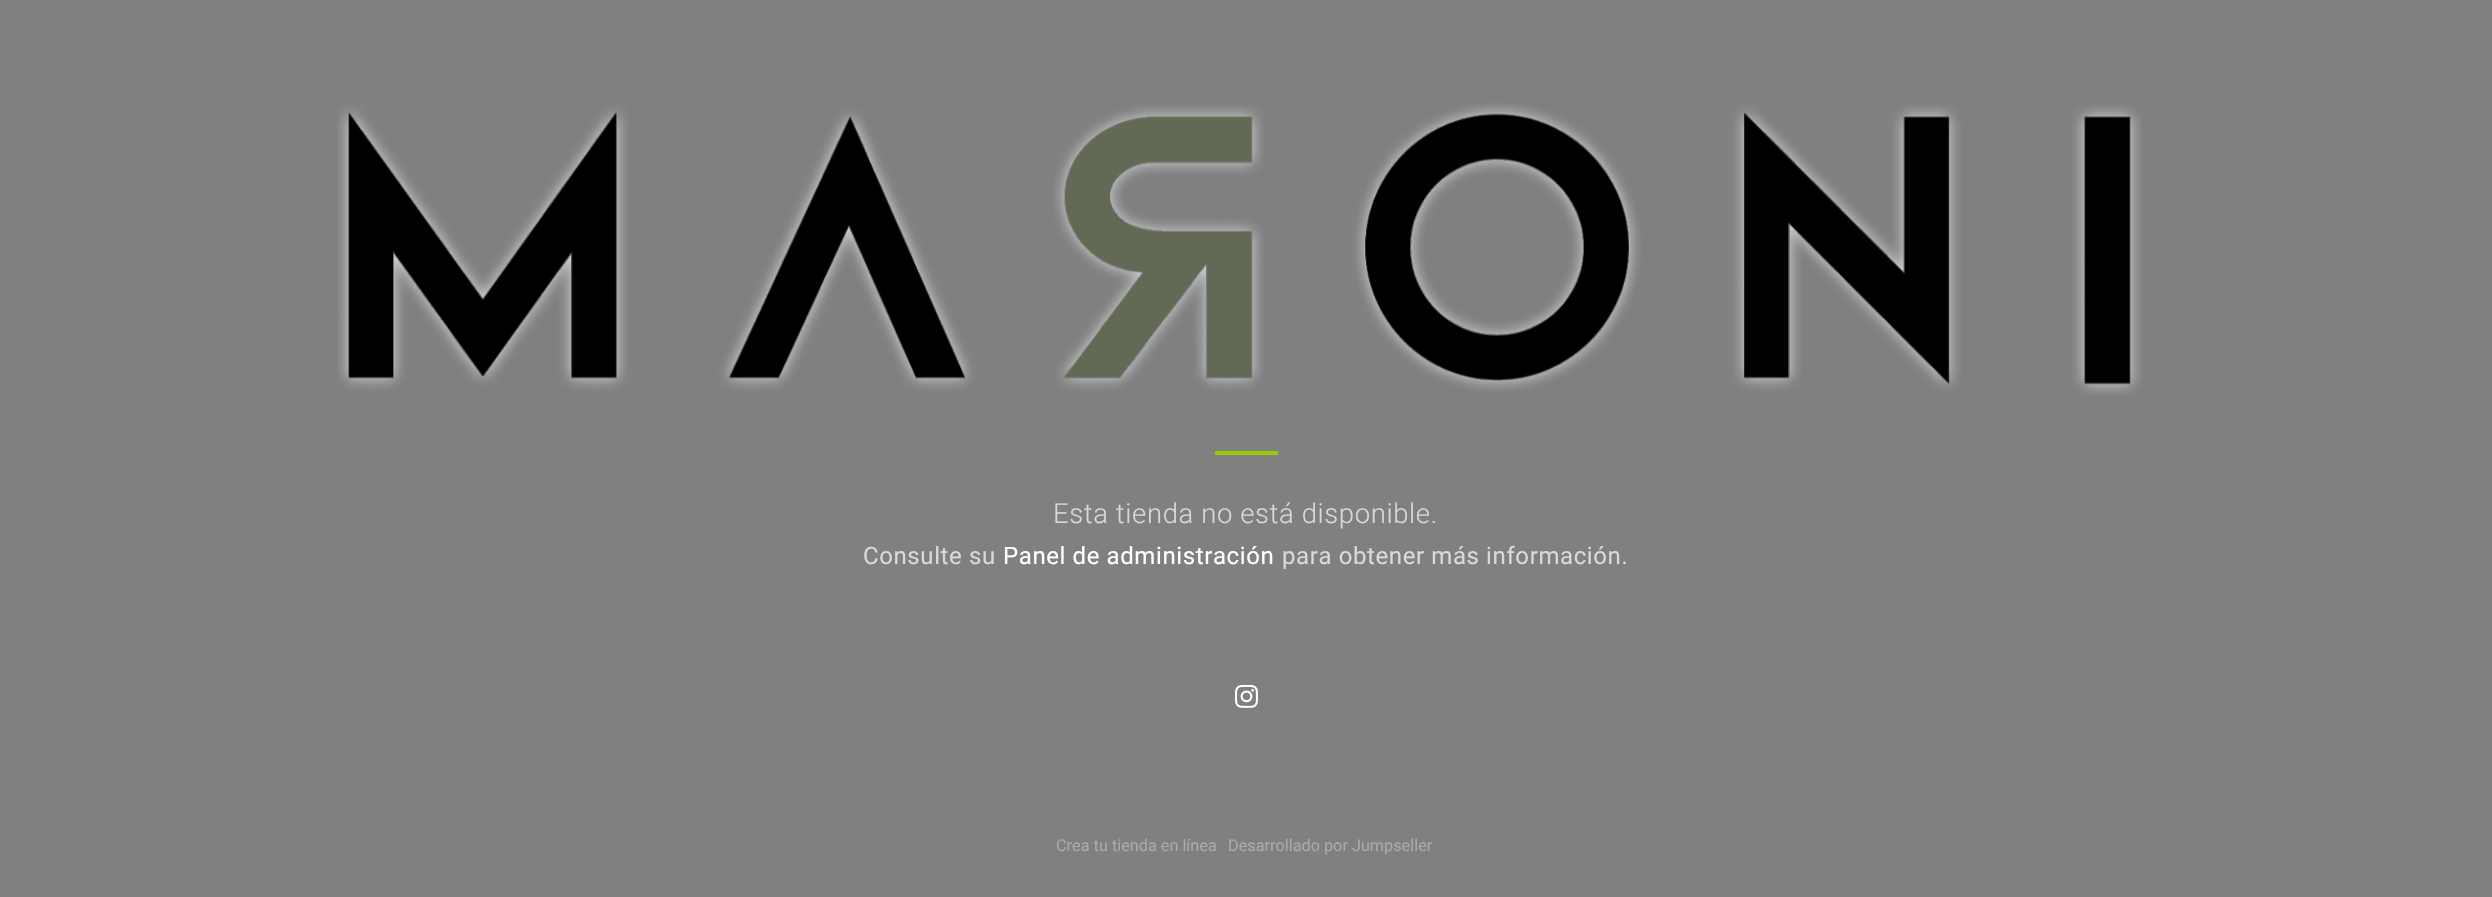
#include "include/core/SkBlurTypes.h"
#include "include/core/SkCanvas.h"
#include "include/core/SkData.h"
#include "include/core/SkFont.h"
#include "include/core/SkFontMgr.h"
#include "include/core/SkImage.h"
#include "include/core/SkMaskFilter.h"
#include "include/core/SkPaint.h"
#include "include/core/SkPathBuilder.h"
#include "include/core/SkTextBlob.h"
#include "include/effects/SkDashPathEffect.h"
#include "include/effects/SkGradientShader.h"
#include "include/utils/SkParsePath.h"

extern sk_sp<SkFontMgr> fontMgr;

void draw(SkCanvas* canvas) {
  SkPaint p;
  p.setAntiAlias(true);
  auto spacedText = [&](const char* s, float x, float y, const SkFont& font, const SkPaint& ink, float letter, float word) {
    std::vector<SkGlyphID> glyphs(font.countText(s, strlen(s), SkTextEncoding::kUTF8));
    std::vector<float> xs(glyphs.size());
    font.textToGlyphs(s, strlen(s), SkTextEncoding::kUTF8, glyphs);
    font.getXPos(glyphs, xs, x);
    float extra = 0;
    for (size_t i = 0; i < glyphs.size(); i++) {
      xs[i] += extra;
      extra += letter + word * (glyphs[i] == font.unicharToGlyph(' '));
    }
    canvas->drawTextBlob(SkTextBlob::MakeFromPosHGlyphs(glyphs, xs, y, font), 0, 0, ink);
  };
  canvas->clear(SkColorSetRGB(128, 128, 128));
  canvas->drawImageRect(SkImages::DeferredFromEncodedData(SkData::MakeFromFileName("images/1.png")), SkRect::MakeLTRB(337, 103, 2142, 395), SkSamplingOptions());
  p.setColor(SkColorSetRGB(153, 204, 0));
  canvas->drawRect(SkRect::MakeLTRB(1215, 451, 1278, 455), p);
  canvas->drawImageRect(SkImages::DeferredFromEncodedData(SkData::MakeFromFileName("images/2.png")), SkRect::MakeLTRB(1235, 684, 1258, 708), SkSamplingOptions());
  SkFont font1(fontMgr->matchFamilyStyle("Roboto", SkFontStyle(300, SkFontStyle::kNormal_Width, SkFontStyle::kUpright_Slant)), 27.5f);
  font1.setSubpixel(true);
  p.setColor(SkColorSetRGB(217, 217, 217));
  spacedText("Esta tienda no está disponible.", 1053, 523, font1, p, 0.6f, 0);
  SkFont font2(fontMgr->matchFamilyStyle("Roboto", SkFontStyle::Normal()), 24);
  font2.setSubpixel(true);
  spacedText("Consulte su", 863, 564, font2, p, 0.6f, 0);
  p.setColor(SK_ColorWHITE);
  spacedText("Panel de administración", 1003, 564, font2, p, 0.6f, 0);
  p.setColor(SkColorSetRGB(217, 217, 217));
  spacedText("para obtener más información.", 1282, 564, font2, p, 0.6f, 0);
  SkFont font3(fontMgr->matchFamilyStyle("Roboto", SkFontStyle::Normal()), 16.25f);
  font3.setSubpixel(true);
  p.setColor(SkColorSetRGB(170, 170, 170));
  canvas->drawString("Crea tu tienda en línea", 1056, 851, font3, p);
  canvas->drawString("Desarrollado por Jumpseller", 1228, 851, font3, p);
}
